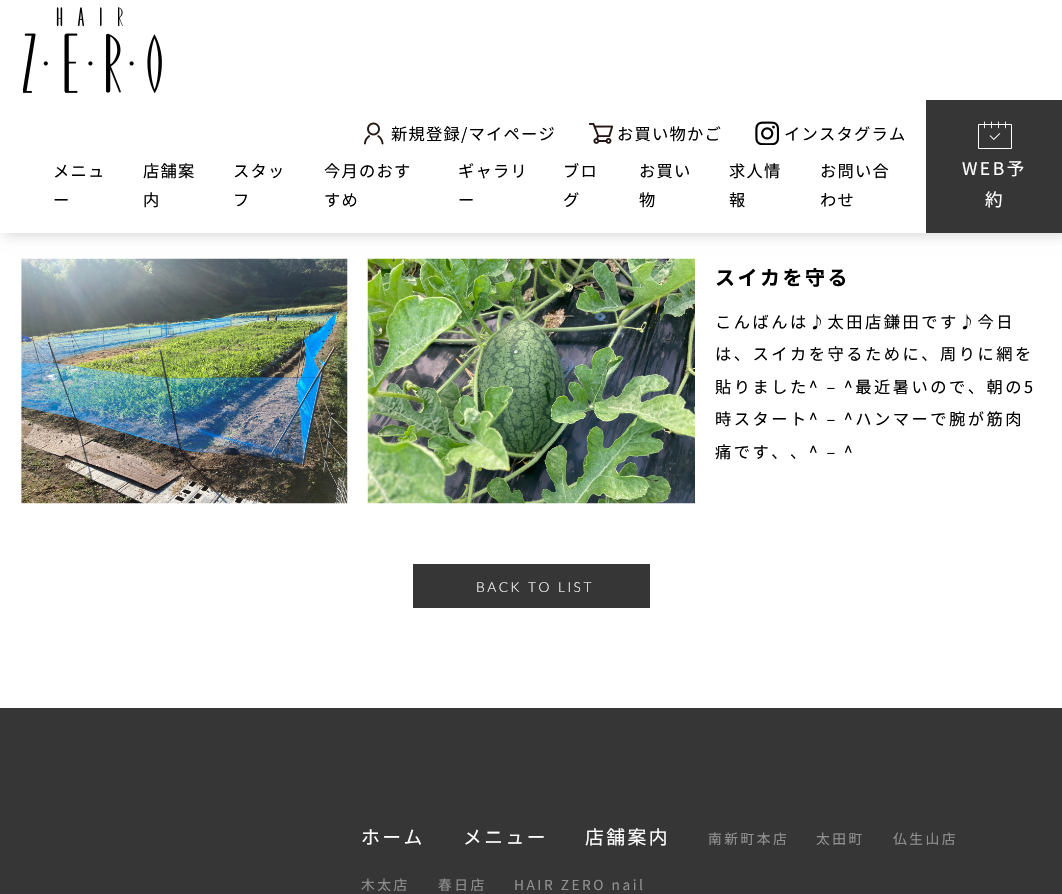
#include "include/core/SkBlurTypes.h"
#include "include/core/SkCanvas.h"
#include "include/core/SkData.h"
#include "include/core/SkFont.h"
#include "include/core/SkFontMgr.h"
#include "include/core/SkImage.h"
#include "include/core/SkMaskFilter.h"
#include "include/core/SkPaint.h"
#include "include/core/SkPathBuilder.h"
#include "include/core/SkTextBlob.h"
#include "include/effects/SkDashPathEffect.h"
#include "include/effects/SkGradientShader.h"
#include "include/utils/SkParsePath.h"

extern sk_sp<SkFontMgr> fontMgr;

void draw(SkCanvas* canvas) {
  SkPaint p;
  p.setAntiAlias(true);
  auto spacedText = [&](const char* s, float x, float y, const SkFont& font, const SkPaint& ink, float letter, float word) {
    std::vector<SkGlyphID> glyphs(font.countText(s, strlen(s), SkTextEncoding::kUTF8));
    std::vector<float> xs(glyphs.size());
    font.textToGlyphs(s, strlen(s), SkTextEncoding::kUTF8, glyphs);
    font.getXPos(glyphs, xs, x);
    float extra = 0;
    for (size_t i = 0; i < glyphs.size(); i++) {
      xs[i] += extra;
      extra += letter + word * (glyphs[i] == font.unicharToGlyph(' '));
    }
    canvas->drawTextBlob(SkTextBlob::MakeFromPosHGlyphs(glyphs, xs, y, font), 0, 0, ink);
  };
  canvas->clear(SK_ColorWHITE);
  p.setColor(SkColorSetARGB(36, 0, 0, 0));
  p.setMaskFilter(SkMaskFilter::MakeBlur(kNormal_SkBlurStyle, 6));
  canvas->drawRect(SkRect::MakeLTRB(4, 4, 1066, 236), p);
  p.setMaskFilter(nullptr);
  p.setColor(SK_ColorWHITE);
  canvas->drawRect(SkRect::MakeLTRB(0, 0, 1062, 233), p);
  canvas->drawImageRect(SkImages::DeferredFromEncodedData(SkData::MakeFromFileName("images/1.png")), SkRect::MakeLTRB(23, 7, 162, 94), SkSamplingOptions());
  canvas->drawImageRect(SkImages::DeferredFromEncodedData(SkData::MakeFromFileName("images/2.png")), SkRect::MakeLTRB(363, 122, 384, 145), SkSamplingOptions());
  canvas->drawImageRect(SkImages::DeferredFromEncodedData(SkData::MakeFromFileName("images/3.png")), SkRect::MakeLTRB(589, 123, 613, 144), SkSamplingOptions());
  canvas->drawImageRect(SkImages::DeferredFromEncodedData(SkData::MakeFromFileName("images/4.png")), SkRect::MakeLTRB(755, 121, 779, 145), SkSamplingOptions());
  p.setColor(SkColorSetRGB(54, 54, 54));
  canvas->drawRect(SkRect::MakeLTRB(926, 100, 1062, 233), p);
  canvas->drawImageRect(SkImages::DeferredFromEncodedData(SkData::MakeFromFileName("images/5.png")), SkRect::MakeLTRB(978, 121, 1012, 149), SkSamplingOptions());
  canvas->drawImageRect(SkImages::DeferredFromEncodedData(SkData::MakeFromFileName("images/6.png")), SkRect::MakeLTRB(21, 258, 348, 504), SkSamplingOptions());
  canvas->drawImageRect(SkImages::DeferredFromEncodedData(SkData::MakeFromFileName("images/7.png")), SkRect::MakeLTRB(367, 258, 695, 504), SkSamplingOptions());
  canvas->drawRect(SkRect::MakeLTRB(413, 564, 650, 608), p);
  canvas->drawRect(SkRect::MakeLTRB(0, 708, 1062, 894), p);
  SkFont font1(fontMgr->matchFamilyStyle("Noto Sans JP", SkFontStyle::Normal()), 16.25f);
  font1.setSubpixel(true);
  p.setColor(SK_ColorBLACK);
  spacedText("新規登録/マイページ", 391, 140, font1, p, 1.25f, 0);
  spacedText("お買い物かご", 617, 140, font1, p, 1.25f, 0);
  spacedText("インスタグラム", 784, 140, font1, p, 1.25f, 0);
  spacedText("メニュ", 53, 177, font1, p, 1.25f, 0);
  spacedText("ー", 53, 206, font1, p, 1.25f, 0);
  spacedText("店舗案", 143, 177, font1, p, 1.25f, 0);
  spacedText("内", 143, 206, font1, p, 1.25f, 0);
  spacedText("スタッ", 233, 177, font1, p, 1.25f, 0);
  spacedText("フ", 233, 206, font1, p, 1.25f, 0);
  spacedText("今月のおす", 324, 177, font1, p, 1.25f, 0);
  spacedText("すめ", 324, 206, font1, p, 1.25f, 0);
  spacedText("ギャラリ", 458, 177, font1, p, 1.25f, 0);
  spacedText("ー", 458, 206, font1, p, 1.25f, 0);
  spacedText("ブロ", 563, 177, font1, p, 1.25f, 0);
  spacedText("グ", 563, 206, font1, p, 1.25f, 0);
  spacedText("お買い", 639, 177, font1, p, 1.25f, 0);
  spacedText("物", 639, 206, font1, p, 1.25f, 0);
  spacedText("求人情", 729, 177, font1, p, 1.25f, 0);
  spacedText("報", 729, 206, font1, p, 1.25f, 0);
  spacedText("お問い合", 820, 177, font1, p, 1.25f, 0);
  spacedText("わせ", 820, 206, font1, p, 1.25f, 0);
  SkFont font2(fontMgr->matchFamilyStyle("Noto Sans JP", SkFontStyle::Normal()), 17.5f);
  font2.setSubpixel(true);
  p.setColor(SK_ColorWHITE);
  spacedText("WEB予", 962, 175, font2, p, 2.5f, 0);
  spacedText("約", 985, 206, font2, p, 2.5f, 0);
  SkFont font3(fontMgr->matchFamilyStyle("Noto Sans JP", SkFontStyle::Bold()), 20);
  font3.setSubpixel(true);
  p.setColor(SK_ColorBLACK);
  spacedText("スイカを守る", 715, 285, font3, p, 2.5f, 0);
  spacedText("こんばんは♪太田店鎌田です♪今日", 715, 328, font1, p, 2.5f, 0);
  spacedText("は、スイカを守るために、周りに網を", 715, 360, font1, p, 2.5f, 0);
  spacedText("貼りました^ – ^最近暑いので、朝の5", 715, 393, font1, p, 2.5f, 0);
  spacedText("時スタート^ – ^ハンマーで腕が筋肉", 715, 425, font1, p, 2.5f, 0);
  spacedText("痛です、、^ – ^", 715, 458, font1, p, 2.5f, 0);
  SkFont font4(fontMgr->matchFamilyStyle("Lato", SkFontStyle(300, SkFontStyle::kNormal_Width, SkFontStyle::kUpright_Slant)), 13.75f);
  font4.setSubpixel(true);
  p.setColor(SK_ColorWHITE);
  spacedText("BACK TO LIST", 476, 592, font4, p, 2.5f, 0);
  SkFont font5(fontMgr->matchFamilyStyle("Noto Sans JP", SkFontStyle::Normal()), 18.75f);
  font5.setSubpixel(true);
  spacedText("ホーム", 361, 844, font5, p, 2.5f, 0);
  spacedText("メニュー", 463, 844, font5, p, 2.5f, 0);
  spacedText("店舗案内", 585, 844, font5, p, 2.5f, 0);
  SkFont font6(fontMgr->matchFamilyStyle("Noto Sans JP", SkFontStyle::Normal()), 13.75f);
  font6.setSubpixel(true);
  p.setColor(SkColorSetRGB(145, 145, 145));
  spacedText("南新町本店", 708, 844, font6, p, 2.5f, 0);
  spacedText("太田町", 816, 844, font6, p, 2.5f, 0);
  spacedText("仏生山店", 893, 844, font6, p, 2.5f, 0);
  spacedText("木太店", 361, 890, font6, p, 2.5f, 0);
  spacedText("春日店", 438, 890, font6, p, 2.5f, 0);
  spacedText("HAIR ZERO nail", 514, 890, font6, p, 2.5f, 0);
}
